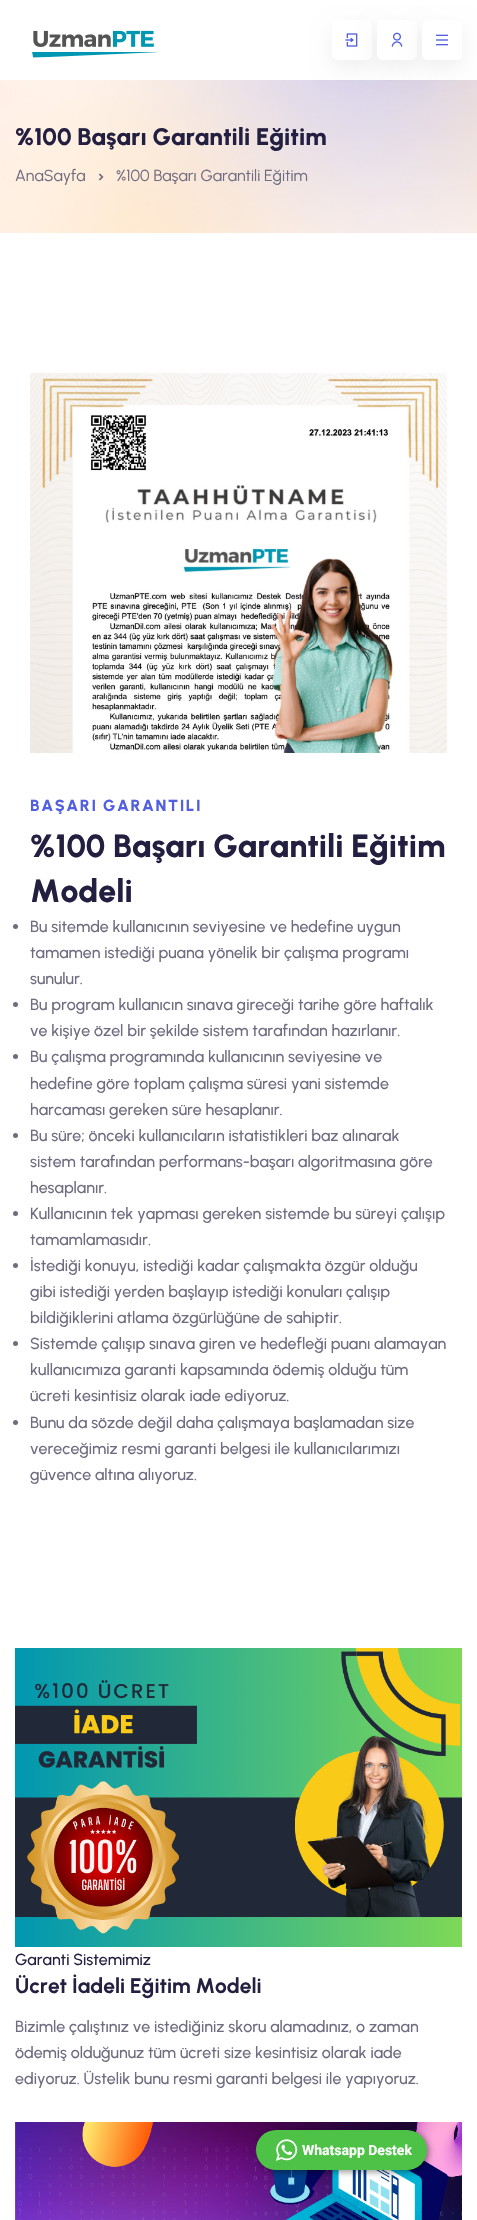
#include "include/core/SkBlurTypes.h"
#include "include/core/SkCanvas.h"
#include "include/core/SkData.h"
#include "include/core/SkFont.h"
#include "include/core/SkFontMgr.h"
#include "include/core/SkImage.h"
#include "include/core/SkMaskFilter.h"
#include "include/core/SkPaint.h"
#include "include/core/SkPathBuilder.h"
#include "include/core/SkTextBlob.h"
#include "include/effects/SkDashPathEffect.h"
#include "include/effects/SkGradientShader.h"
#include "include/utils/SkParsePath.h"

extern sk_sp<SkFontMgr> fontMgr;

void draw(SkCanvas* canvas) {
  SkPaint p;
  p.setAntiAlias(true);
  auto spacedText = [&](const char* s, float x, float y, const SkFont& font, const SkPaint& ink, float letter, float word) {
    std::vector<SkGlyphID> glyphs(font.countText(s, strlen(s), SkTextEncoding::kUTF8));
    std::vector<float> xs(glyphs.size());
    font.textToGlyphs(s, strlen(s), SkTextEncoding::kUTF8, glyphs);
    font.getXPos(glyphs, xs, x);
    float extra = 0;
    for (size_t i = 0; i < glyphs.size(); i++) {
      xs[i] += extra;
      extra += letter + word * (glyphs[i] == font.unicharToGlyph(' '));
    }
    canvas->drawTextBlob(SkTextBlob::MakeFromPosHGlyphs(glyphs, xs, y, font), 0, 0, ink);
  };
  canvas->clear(SK_ColorWHITE);
  canvas->drawImageRect(SkImages::DeferredFromEncodedData(SkData::MakeFromFileName("images/1.png")), SkRect::MakeLTRB(32, 30, 157, 58), SkSamplingOptions());
  canvas->drawImageRect(SkImages::DeferredFromEncodedData(SkData::MakeFromFileName("images/5.png")), SkRect::MakeLTRB(0, 80, 477, 233), SkSamplingOptions());
  p.setColor(SkColorSetARGB(15, 0, 0, 0));
  p.setMaskFilter(SkMaskFilter::MakeBlur(kNormal_SkBlurStyle, 10));
  canvas->drawRoundRect(SkRect::MakeLTRB(332, 28, 372, 68), 5, 5, p);
  p.setMaskFilter(nullptr);
  p.setColor(SK_ColorWHITE);
  canvas->drawRoundRect(SkRect::MakeLTRB(332, 20, 372, 60), 5, 5, p);
  canvas->drawImageRect(SkImages::DeferredFromEncodedData(SkData::MakeFromFileName("images/2.png")), SkRect::MakeLTRB(345, 33, 358, 47), SkSamplingOptions());
  p.setColor(SkColorSetARGB(15, 0, 0, 0));
  p.setMaskFilter(SkMaskFilter::MakeBlur(kNormal_SkBlurStyle, 10));
  canvas->drawRoundRect(SkRect::MakeLTRB(377, 28, 417, 68), 5, 5, p);
  p.setMaskFilter(nullptr);
  p.setColor(SK_ColorWHITE);
  canvas->drawRoundRect(SkRect::MakeLTRB(377, 20, 417, 60), 5, 5, p);
  canvas->drawImageRect(SkImages::DeferredFromEncodedData(SkData::MakeFromFileName("images/3.png")), SkRect::MakeLTRB(391, 32, 403, 47), SkSamplingOptions());
  p.setColor(SkColorSetARGB(15, 0, 0, 0));
  p.setMaskFilter(SkMaskFilter::MakeBlur(kNormal_SkBlurStyle, 10));
  canvas->drawRoundRect(SkRect::MakeLTRB(422, 28, 462, 68), 5, 5, p);
  p.setMaskFilter(nullptr);
  p.setColor(SK_ColorWHITE);
  canvas->drawRoundRect(SkRect::MakeLTRB(422, 20, 462, 60), 5, 5, p);
  canvas->drawImageRect(SkImages::DeferredFromEncodedData(SkData::MakeFromFileName("images/4.png")), SkRect::MakeLTRB(436, 34, 448, 46), SkSamplingOptions());
  canvas->drawImageRect(SkImages::DeferredFromEncodedData(SkData::MakeFromFileName("images/6.png")), SkRect::MakeLTRB(98, 173, 104, 181), SkSamplingOptions());
  canvas->drawImageRect(SkImages::DeferredFromEncodedData(SkData::MakeFromFileName("images/7.png")), SkRect::MakeLTRB(30, 373, 447, 753), SkSamplingOptions());
  p.setColor(SkColorSetRGB(111, 107, 128));
  canvas->drawCircle(15.5f, 926.5f, 2.5f, p);
  canvas->drawCircle(15.5f, 1004.5f, 2.5f, p);
  canvas->drawCircle(15.5f, 1056.5f, 2.5f, p);
  canvas->drawCircle(15.5f, 1135.5f, 2.5f, p);
  canvas->drawCircle(15.5f, 1213.5f, 2.5f, p);
  canvas->drawCircle(15.5f, 1265.5f, 2.5f, p);
  canvas->drawCircle(15.5f, 1343.5f, 2.5f, p);
  canvas->drawCircle(15.5f, 1422.5f, 2.5f, p);
  canvas->drawImageRect(SkImages::DeferredFromEncodedData(SkData::MakeFromFileName("images/8.png")), SkRect::MakeLTRB(15, 1648, 462, 1947), SkSamplingOptions());
  canvas->drawImageRect(SkImages::DeferredFromEncodedData(SkData::MakeFromFileName("images/9.png")), SkRect::MakeLTRB(15, 2122, 462, 2220), SkSamplingOptions());
  p.setColor(SkColorSetARGB(102, 0, 0, 0));
  p.setMaskFilter(SkMaskFilter::MakeBlur(kNormal_SkBlurStyle, 3));
  canvas->drawRoundRect(SkRect::MakeLTRB(258, 2132, 429, 2172), 20, 20, p);
  p.setMaskFilter(nullptr);
  p.setColor(SkColorSetRGB(77, 194, 71));
  canvas->drawRoundRect(SkRect::MakeLTRB(256, 2130, 427, 2170), 20, 20, p);
  canvas->drawImageRect(SkImages::DeferredFromEncodedData(SkData::MakeFromFileName("images/10.png")), SkRect::MakeLTRB(275, 2139, 298, 2161), SkSamplingOptions());
  SkFont font1(fontMgr->matchFamilyStyle("Urbanist", SkFontStyle(800, SkFontStyle::kNormal_Width, SkFontStyle::kUpright_Slant)), 24);
  font1.setSubpixel(true);
  p.setColor(SkColorSetRGB(35, 31, 64));
  canvas->drawString("%100 Başarı Garantili Eğitim", 15, 145, font1, p);
  SkFont font2(fontMgr->matchFamilyStyle("Urbanist", SkFontStyle::Normal()), 16);
  font2.setSubpixel(true);
  p.setColor(SkColorSetRGB(111, 107, 128));
  canvas->drawString("AnaSayfa", 15, 181, font2, p);
  canvas->drawString("%100 Başarı Garantili Eğitim", 116, 181, font2, p);
  SkFont font3(fontMgr->matchFamilyStyle("Urbanist", SkFontStyle(800, SkFontStyle::kNormal_Width, SkFontStyle::kUpright_Slant)), 16);
  font3.setSubpixel(true);
  p.setColor(SkColorSetRGB(82, 95, 225));
  spacedText("BAŞARI GARANTILI", 30, 811, font3, p, 1.6f, 0);
  SkFont font4(fontMgr->matchFamilyStyle("Urbanist", SkFontStyle(800, SkFontStyle::kNormal_Width, SkFontStyle::kUpright_Slant)), 32);
  font4.setSubpixel(true);
  p.setColor(SkColorSetRGB(35, 31, 64));
  canvas->drawString("%100 Başarı Garantili Eğitim", 30, 857, font4, p);
  canvas->drawString("Modeli", 30, 902, font4, p);
  SkFont font5(fontMgr->matchFamilyStyle("Urbanist", SkFontStyle(500, SkFontStyle::kNormal_Width, SkFontStyle::kUpright_Slant)), 16);
  font5.setSubpixel(true);
  p.setColor(SkColorSetRGB(111, 107, 128));
  canvas->drawString("Bu sitemde kullanıcının seviyesine ve hedefine uygun", 30, 932, font5, p);
  canvas->drawString("tamamen istediği puana yönelik bir çalışma programı", 30, 958, font5, p);
  canvas->drawString("sunulur.", 30, 984, font5, p);
  canvas->drawString("Bu program kullanıcın sınava gireceği tarihe göre haftalık", 30, 1010, font5, p);
  canvas->drawString("ve kişiye özel bir şekilde sistem tarafından hazırlanır.", 30, 1036, font5, p);
  canvas->drawString("Bu çalışma programında kullanıcının seviyesine ve", 30, 1062, font5, p);
  canvas->drawString("hedefine göre toplam çalışma süresi yani sistemde", 30, 1089, font5, p);
  canvas->drawString("harcaması gereken süre hesaplanır.", 30, 1115, font5, p);
  canvas->drawString("Bu süre; önceki kullanıcıların istatistikleri baz alınarak", 30, 1141, font5, p);
  canvas->drawString("sistem tarafından performans-başarı algoritmasına göre", 30, 1167, font5, p);
  canvas->drawString("hesaplanır.", 30, 1193, font5, p);
  canvas->drawString("Kullanıcının tek yapması gereken sistemde bu süreyi çalışıp", 30, 1219, font5, p);
  canvas->drawString("tamamlamasıdır.", 30, 1245, font5, p);
  canvas->drawString("İstediği konuyu, istediği kadar çalışmakta özgür olduğu", 30, 1271, font5, p);
  canvas->drawString("gibi istediği yerden başlayıp istediği konuları çalışıp", 30, 1297, font5, p);
  canvas->drawString("bildiğiklerini atlama özgürlüğüne de sahiptir.", 30, 1323, font5, p);
  canvas->drawString("Sistemde çalışıp sınava giren ve hedefleği puanı alamayan", 30, 1349, font5, p);
  canvas->drawString("kullanıcımıza garanti kapsamında ödemiş olduğu tüm", 30, 1375, font5, p);
  canvas->drawString("ücreti kesintisiz olarak iade ediyoruz.", 30, 1401, font5, p);
  canvas->drawString("Bunu da sözde değil daha çalışmaya başlamadan size", 30, 1428, font5, p);
  canvas->drawString("vereceğimiz resmi garanti belgesi ile kullanıcılarımızı", 30, 1454, font5, p);
  canvas->drawString("güvence altına alıyoruz.", 30, 1480, font5, p);
  p.setColor(SkColorSetRGB(35, 31, 64));
  canvas->drawString("Garanti Sistemimiz", 15, 1965, font5, p);
  SkFont font6(fontMgr->matchFamilyStyle("Urbanist", SkFontStyle::Bold()), 20.9f);
  font6.setSubpixel(true);
  canvas->drawString("Ücret İadeli Eğitim Modeli", 15, 1993, font6, p);
  p.setColor(SkColorSetRGB(111, 107, 128));
  canvas->drawString("Bizimle çalıştınız ve istediğiniz skoru alamadınız, o zaman", 15, 2032, font5, p);
  canvas->drawString("ödemiş olduğunuz tüm ücreti size kesintisiz olarak iade", 15, 2058, font5, p);
  canvas->drawString("ediyoruz. Üstelik bunu resmi garanti belgesi ile yapıyoruz.", 15, 2084, font5, p);
  SkFont font7(fontMgr->matchFamilyStyle("Roboto", SkFontStyle::Bold()), 14);
  font7.setSubpixel(true);
  p.setColor(SK_ColorWHITE);
  canvas->drawString("Whatsapp Destek", 302, 2155, font7, p);
}
